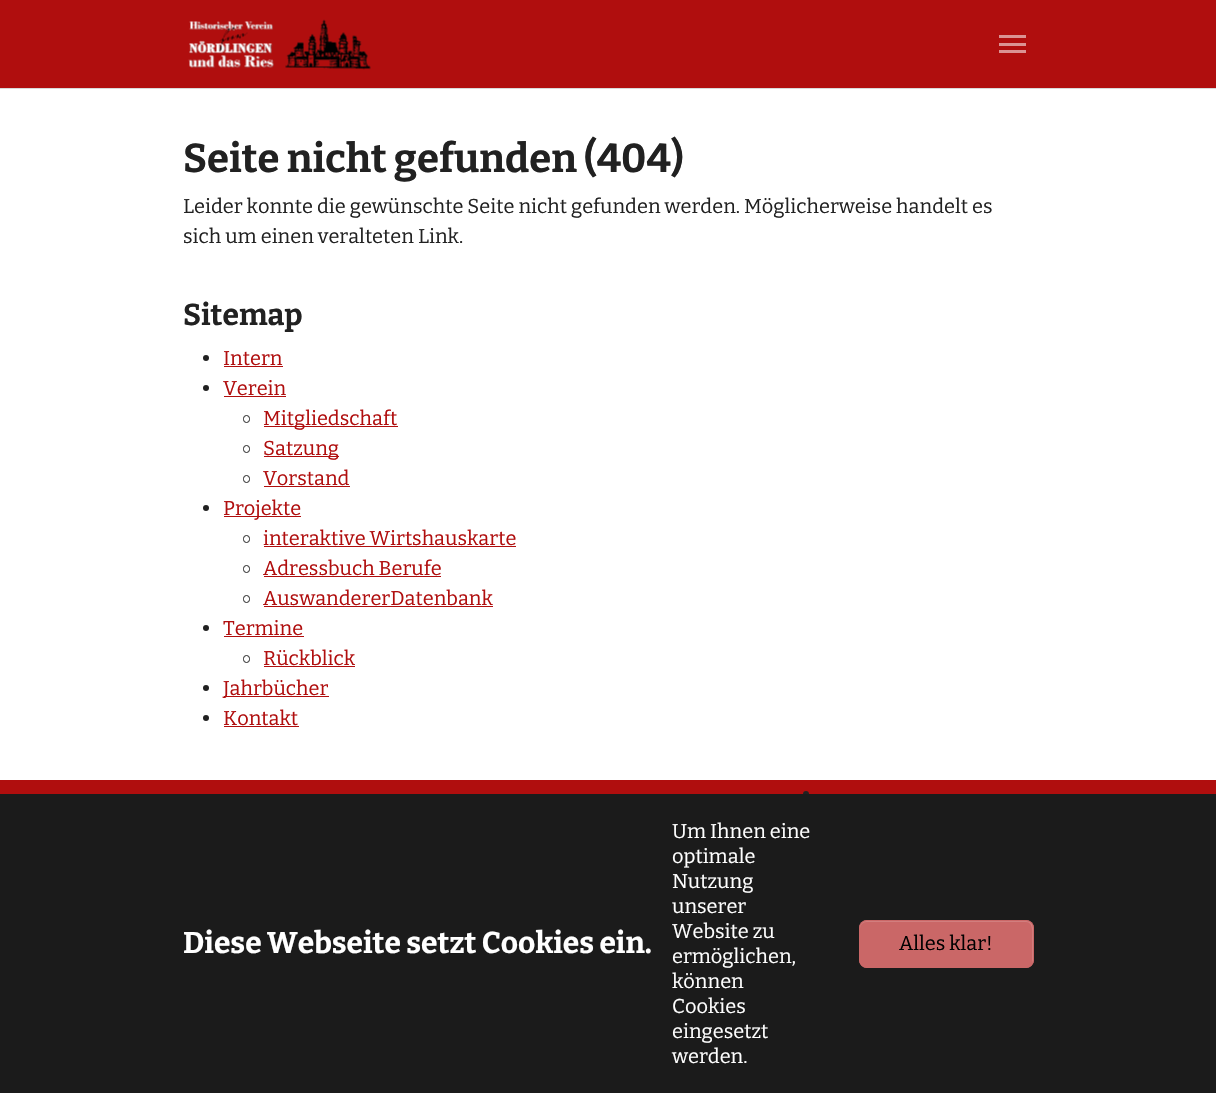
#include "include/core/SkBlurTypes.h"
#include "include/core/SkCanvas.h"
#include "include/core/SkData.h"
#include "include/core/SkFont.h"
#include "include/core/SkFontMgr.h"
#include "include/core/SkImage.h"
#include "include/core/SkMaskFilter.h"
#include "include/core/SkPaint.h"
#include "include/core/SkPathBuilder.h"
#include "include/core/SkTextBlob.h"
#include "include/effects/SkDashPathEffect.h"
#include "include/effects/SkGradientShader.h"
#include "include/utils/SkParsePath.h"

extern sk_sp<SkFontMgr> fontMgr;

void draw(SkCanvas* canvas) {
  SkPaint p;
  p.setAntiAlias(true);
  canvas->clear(SK_ColorWHITE);
  p.setColor(SkColorSetRGB(217, 217, 217));
  canvas->drawRect(SkRect::MakeLTRB(0, 88, 1216, 89), p);
  p.setColor(SkColorSetRGB(176, 14, 14));
  canvas->drawRect(SkRect::MakeLTRB(0, 0, 1216, 88), p);
  canvas->drawImageRect(SkImages::DeferredFromEncodedData(SkData::MakeFromFileName("images/1.png")), SkRect::MakeLTRB(188, 19, 371, 70), SkSamplingOptions());
  p.setColor(SkColorSetRGB(219, 147, 147));
  canvas->drawRect(SkRect::MakeLTRB(999, 43, 1026, 46), p);
  canvas->drawRect(SkRect::MakeLTRB(999, 35, 1026, 38), p);
  canvas->drawRect(SkRect::MakeLTRB(999, 50, 1026, 53), p);
  p.setColor(SkColorSetRGB(33, 33, 33));
  canvas->drawCircle(206, 358, 3, p);
  p.setColor(SkColorSetRGB(176, 14, 14));
  canvas->drawRect(SkRect::MakeLTRB(224, 366, 283, 367), p);
  p.setColor(SkColorSetRGB(33, 33, 33));
  canvas->drawCircle(206, 388, 3, p);
  p.setColor(SkColorSetRGB(176, 14, 14));
  canvas->drawRect(SkRect::MakeLTRB(224, 396, 286, 397), p);
  p.setStyle(SkPaint::kStroke_Style);
  p.setStrokeWidth(1);
  p.setColor(SkColorSetRGB(33, 33, 33));
  canvas->drawRoundRect(SkRect::MakeLTRB(243.5f, 415.5f, 249.5f, 422.5f), 3, 3, p);
  p.setStyle(SkPaint::kFill_Style);
  p.setColor(SkColorSetRGB(176, 14, 14));
  canvas->drawRect(SkRect::MakeLTRB(264, 426, 398, 427), p);
  p.setStyle(SkPaint::kStroke_Style);
  p.setColor(SkColorSetRGB(33, 33, 33));
  canvas->drawRoundRect(SkRect::MakeLTRB(243.5f, 445.5f, 249.5f, 452.5f), 3, 3, p);
  p.setStyle(SkPaint::kFill_Style);
  p.setColor(SkColorSetRGB(176, 14, 14));
  canvas->drawRect(SkRect::MakeLTRB(264, 456, 339, 457), p);
  p.setStyle(SkPaint::kStroke_Style);
  p.setColor(SkColorSetRGB(33, 33, 33));
  canvas->drawRoundRect(SkRect::MakeLTRB(243.5f, 475.5f, 249.5f, 482.5f), 3, 3, p);
  p.setStyle(SkPaint::kFill_Style);
  p.setColor(SkColorSetRGB(176, 14, 14));
  canvas->drawRect(SkRect::MakeLTRB(264, 486, 350, 487), p);
  p.setColor(SkColorSetRGB(33, 33, 33));
  canvas->drawCircle(206, 508, 3, p);
  p.setColor(SkColorSetRGB(176, 14, 14));
  canvas->drawRect(SkRect::MakeLTRB(224, 516, 301, 517), p);
  p.setStyle(SkPaint::kStroke_Style);
  p.setColor(SkColorSetRGB(33, 33, 33));
  canvas->drawRoundRect(SkRect::MakeLTRB(243.5f, 535.5f, 249.5f, 542.5f), 3, 3, p);
  p.setStyle(SkPaint::kFill_Style);
  p.setColor(SkColorSetRGB(176, 14, 14));
  canvas->drawRect(SkRect::MakeLTRB(264, 546, 516, 547), p);
  p.setStyle(SkPaint::kStroke_Style);
  p.setColor(SkColorSetRGB(33, 33, 33));
  canvas->drawRoundRect(SkRect::MakeLTRB(243.5f, 565.5f, 249.5f, 572.5f), 3, 3, p);
  p.setStyle(SkPaint::kFill_Style);
  p.setColor(SkColorSetRGB(176, 14, 14));
  canvas->drawRect(SkRect::MakeLTRB(264, 576, 441, 577), p);
  p.setStyle(SkPaint::kStroke_Style);
  p.setColor(SkColorSetRGB(33, 33, 33));
  canvas->drawRoundRect(SkRect::MakeLTRB(243.5f, 595.5f, 249.5f, 602.5f), 3, 3, p);
  p.setStyle(SkPaint::kFill_Style);
  p.setColor(SkColorSetRGB(176, 14, 14));
  canvas->drawRect(SkRect::MakeLTRB(264, 606, 493, 607), p);
  p.setColor(SkColorSetRGB(33, 33, 33));
  canvas->drawCircle(206, 628, 3, p);
  p.setColor(SkColorSetRGB(176, 14, 14));
  canvas->drawRect(SkRect::MakeLTRB(224, 636, 304, 637), p);
  p.setStyle(SkPaint::kStroke_Style);
  p.setColor(SkColorSetRGB(33, 33, 33));
  canvas->drawRoundRect(SkRect::MakeLTRB(243.5f, 655.5f, 249.5f, 662.5f), 3, 3, p);
  p.setStyle(SkPaint::kFill_Style);
  p.setColor(SkColorSetRGB(176, 14, 14));
  canvas->drawRect(SkRect::MakeLTRB(264, 666, 355, 667), p);
  p.setColor(SkColorSetRGB(33, 33, 33));
  canvas->drawCircle(206, 688, 3, p);
  p.setColor(SkColorSetRGB(176, 14, 14));
  canvas->drawRect(SkRect::MakeLTRB(224, 696, 329, 697), p);
  p.setColor(SkColorSetRGB(33, 33, 33));
  canvas->drawCircle(206, 718, 3, p);
  p.setColor(SkColorSetRGB(176, 14, 14));
  canvas->drawRect(SkRect::MakeLTRB(224, 726, 299, 727), p);
  canvas->drawRect(SkRect::MakeLTRB(0, 780, 1216, 794), p);
  p.setColor(SkColorSetRGB(33, 33, 33));
  canvas->drawRoundRect(SkRect::MakeLTRB(803, 791, 809, 798), 3, 3, p);
  p.setColor(SkColorSetRGB(27, 27, 27));
  canvas->drawRect(SkRect::MakeLTRB(0, 794, 1216, 1093), p);
  p.setColor(SkColorSetRGB(202, 103, 103));
  canvas->drawRoundRect(SkRect::MakeLTRB(859, 920, 1034, 968), 8, 8, p);
  p.setColor(SkColorSetRGB(210, 126, 126));
  canvas->drawPath(SkPathBuilder().moveTo(866, 922).lineTo(1026, 922).cubicTo(1034, 922, 1032, 935, 1032, 940).lineTo(1032, 964).cubicTo(1032, 963, 1033, 961, 1033, 960).lineTo(1033, 927).cubicTo(1033, 924, 1030, 921, 1027, 921).lineTo(866, 921).cubicTo(863, 921, 860, 924, 860, 927).lineTo(860, 929).cubicTo(860, 925, 863, 922, 866, 922).close().detach(), p);
  p.setStyle(SkPaint::kStroke_Style);
  p.setColor(SkColorSetRGB(202, 103, 103));
  canvas->drawRoundRect(SkRect::MakeLTRB(859.5f, 920.5f, 1033.5f, 967.5f), 7.5f, 7.5f, p);
  SkFont font1(fontMgr->matchFamilyStyle("Bitter", SkFontStyle::Bold()), 40);
  font1.setSubpixel(true);
  p.setStyle(SkPaint::kFill_Style);
  p.setColor(SkColorSetRGB(33, 33, 33));
  canvas->drawString("Seite nicht gefunden (404)", 183, 172, font1, p);
  SkFont font2(fontMgr->matchFamilyStyle("Bitter", SkFontStyle::Normal()), 20);
  font2.setSubpixel(true);
  canvas->drawString("Leider konnte die gewünschte Seite nicht gefunden werden. Möglicherweise handelt es", 183, 213, font2, p);
  canvas->drawString("sich um einen veralteten Link.", 183, 243, font2, p);
  SkFont font3(fontMgr->matchFamilyStyle("Bitter", SkFontStyle::Bold()), 30);
  font3.setSubpixel(true);
  canvas->drawString("Sitemap", 183, 325, font3, p);
  p.setColor(SkColorSetRGB(176, 14, 14));
  canvas->drawString("Intern", 223, 365, font2, p);
  canvas->drawString("Verein", 223, 395, font2, p);
  canvas->drawString("Mitgliedschaft", 263, 425, font2, p);
  canvas->drawString("Satzung", 263, 455, font2, p);
  canvas->drawString("Vorstand", 263, 485, font2, p);
  canvas->drawString("Projekte", 223, 515, font2, p);
  canvas->drawString("interaktive Wirtshauskarte", 263, 545, font2, p);
  canvas->drawString("Adressbuch Berufe", 263, 575, font2, p);
  canvas->drawString("AuswandererDatenbank", 263, 605, font2, p);
  canvas->drawString("Termine", 223, 635, font2, p);
  canvas->drawString("Rückblick", 263, 665, font2, p);
  canvas->drawString("Jahrbücher", 223, 695, font2, p);
  canvas->drawString("Kontakt", 223, 725, font2, p);
  p.setColor(SK_ColorWHITE);
  canvas->drawString("Diese Webseite setzt Cookies ein.", 183, 953, font3, p);
  canvas->drawString("Um Ihnen eine", 672, 838, font2, p);
  canvas->drawString("optimale", 672, 863, font2, p);
  canvas->drawString("Nutzung", 672, 888, font2, p);
  canvas->drawString("unserer", 672, 913, font2, p);
  canvas->drawString("Website zu", 672, 938, font2, p);
  canvas->drawString("ermöglichen,", 672, 963, font2, p);
  canvas->drawString("können", 672, 988, font2, p);
  canvas->drawString("Cookies", 672, 1013, font2, p);
  canvas->drawString("eingesetzt", 672, 1038, font2, p);
  canvas->drawString("werden.", 672, 1063, font2, p);
  p.setColor(SK_ColorBLACK);
  canvas->drawString("Alles klar!", 899, 950, font2, p);
}
